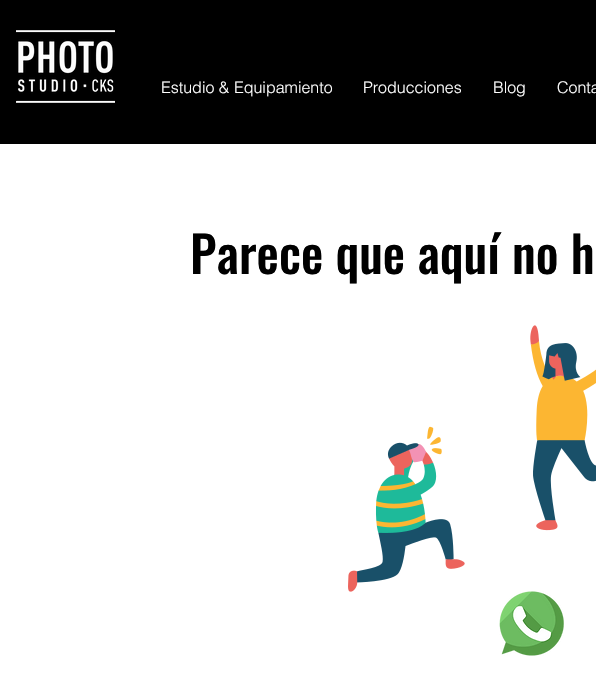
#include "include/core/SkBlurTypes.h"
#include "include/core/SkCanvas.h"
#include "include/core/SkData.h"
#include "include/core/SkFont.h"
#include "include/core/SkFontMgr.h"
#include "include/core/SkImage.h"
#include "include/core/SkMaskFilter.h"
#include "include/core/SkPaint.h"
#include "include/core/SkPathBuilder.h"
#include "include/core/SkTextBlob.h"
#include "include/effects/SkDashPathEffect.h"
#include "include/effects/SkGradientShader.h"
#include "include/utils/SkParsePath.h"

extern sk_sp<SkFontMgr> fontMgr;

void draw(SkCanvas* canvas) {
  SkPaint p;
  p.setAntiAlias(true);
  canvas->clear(SK_ColorWHITE);
  p.setColor(SK_ColorBLACK);
  canvas->drawRect(SkRect::MakeLTRB(0, 0, 596, 144), p);
  canvas->drawImageRect(SkImages::DeferredFromEncodedData(SkData::MakeFromFileName("images/1.png")), SkRect::MakeLTRB(16, 30, 115, 103), SkSamplingOptions());
  canvas->drawImageRect(SkImages::DeferredFromEncodedData(SkData::MakeFromFileName("images/2.png")), SkRect::MakeLTRB(348, 325, 596, 592), SkSamplingOptions());
  canvas->drawImageRect(SkImages::DeferredFromEncodedData(SkData::MakeFromFileName("images/3.png")), SkRect::MakeLTRB(499, 591, 564, 656), SkSamplingOptions());
  SkFont font1(fontMgr->matchFamilyStyle("helvetica", SkFontStyle(300, SkFontStyle::kNormal_Width, SkFontStyle::kUpright_Slant)), 16);
  font1.setSubpixel(true);
  p.setColor(SK_ColorWHITE);
  canvas->drawString("Estudio & Equipamiento", 161, 93, font1, p);
  canvas->drawString("Producciones", 363, 93, font1, p);
  canvas->drawString("Blog", 493, 93, font1, p);
  canvas->drawString("Conta", 557, 93, font1, p);
  SkFont font2(fontMgr->matchFamilyStyle("Oswald", SkFontStyle(500, SkFontStyle::kNormal_Width, SkFontStyle::kUpright_Slant)), 50);
  font2.setSubpixel(true);
  p.setColor(SK_ColorBLACK);
  canvas->drawString("Parece que aquí no h", 190, 274, font2, p);
}
